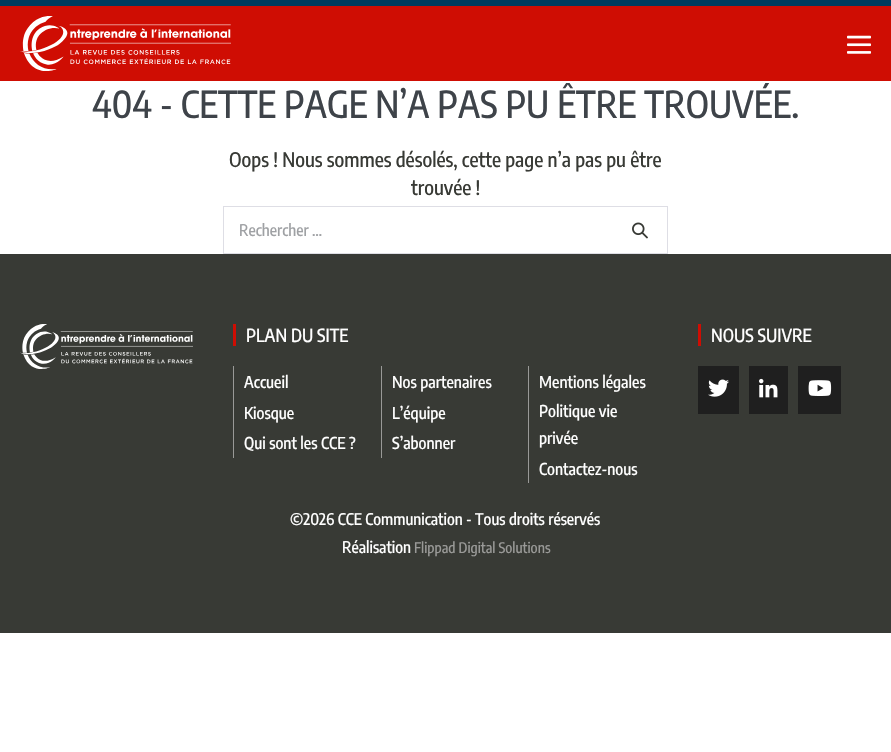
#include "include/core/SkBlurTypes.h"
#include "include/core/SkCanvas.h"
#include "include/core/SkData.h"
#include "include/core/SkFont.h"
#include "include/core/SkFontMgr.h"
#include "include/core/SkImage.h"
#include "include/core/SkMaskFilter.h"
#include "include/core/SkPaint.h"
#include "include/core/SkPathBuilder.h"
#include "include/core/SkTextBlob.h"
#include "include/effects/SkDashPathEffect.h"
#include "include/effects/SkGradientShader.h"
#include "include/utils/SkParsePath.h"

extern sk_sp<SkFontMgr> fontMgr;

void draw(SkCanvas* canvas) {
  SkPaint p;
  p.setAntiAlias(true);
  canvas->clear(SK_ColorWHITE);
  p.setColor(SkColorSetRGB(0, 59, 94));
  canvas->drawRect(SkRect::MakeLTRB(0, 0, 891, 6), p);
  p.setColor(SkColorSetRGB(207, 13, 3));
  canvas->drawRect(SkRect::MakeLTRB(0, 6, 891, 81), p);
  canvas->drawImageRect(SkImages::DeferredFromEncodedData(SkData::MakeFromFileName("images/1.png")), SkRect::MakeLTRB(20, 16, 231, 71), SkSamplingOptions());
  canvas->drawImageRect(SkImages::DeferredFromEncodedData(SkData::MakeFromFileName("images/2.png")), SkRect::MakeLTRB(847, 35, 871, 54), SkSamplingOptions());
  p.setStyle(SkPaint::kStroke_Style);
  p.setStrokeWidth(1);
  p.setColor(SkColorSetRGB(222, 222, 229));
  canvas->drawRect(SkRect::MakeLTRB(223.5f, 206.5f, 667.5f, 253.5f), p);
  canvas->drawImageRect(SkImages::DeferredFromEncodedData(SkData::MakeFromFileName("images/3.png")), SkRect::MakeLTRB(632, 222, 648, 239), SkSamplingOptions());
  p.setStyle(SkPaint::kFill_Style);
  p.setColor(SkColorSetRGB(56, 58, 53));
  canvas->drawRect(SkRect::MakeLTRB(0, 254, 891, 633), p);
  canvas->drawImageRect(SkImages::DeferredFromEncodedData(SkData::MakeFromFileName("images/4.png")), SkRect::MakeLTRB(20, 324, 193, 369), SkSamplingOptions());
  p.setColor(SkColorSetRGB(207, 13, 3));
  canvas->drawRect(SkRect::MakeLTRB(233, 324, 236, 346), p);
  p.setColor(SkColorSetRGB(153, 153, 151));
  canvas->drawRect(SkRect::MakeLTRB(233, 366, 234, 458), p);
  canvas->drawRect(SkRect::MakeLTRB(381, 366, 382, 458), p);
  canvas->drawRect(SkRect::MakeLTRB(528, 366, 529, 483), p);
  p.setColor(SkColorSetRGB(207, 13, 3));
  canvas->drawRect(SkRect::MakeLTRB(698, 324, 701, 346), p);
  p.setColor(SkColorSetRGB(31, 31, 31));
  canvas->drawRect(SkRect::MakeLTRB(698, 366, 739, 414), p);
  canvas->drawImageRect(SkImages::DeferredFromEncodedData(SkData::MakeFromFileName("images/5.png")), SkRect::MakeLTRB(708, 379, 729, 397), SkSamplingOptions());
  canvas->drawRect(SkRect::MakeLTRB(749, 366, 788, 414), p);
  canvas->drawImageRect(SkImages::DeferredFromEncodedData(SkData::MakeFromFileName("images/6.png")), SkRect::MakeLTRB(759, 378, 778, 398), SkSamplingOptions());
  canvas->drawRect(SkRect::MakeLTRB(798, 366, 841, 414), p);
  canvas->drawImageRect(SkImages::DeferredFromEncodedData(SkData::MakeFromFileName("images/7.png")), SkRect::MakeLTRB(808, 380, 832, 396), SkSamplingOptions());
  SkFont font1(fontMgr->matchFamilyStyle("Encode Sans Condensed", SkFontStyle(500, SkFontStyle::kNormal_Width, SkFontStyle::kUpright_Slant)), 37);
  font1.setSubpixel(true);
  p.setColor(SkColorSetRGB(62, 67, 73));
  canvas->drawString("404 - CETTE PAGE N’A PAS PU ÊTRE TROUVÉE.", 92, 118, font1, p);
  SkFont font2(fontMgr->matchFamilyStyle("Encode Sans Condensed", SkFontStyle(500, SkFontStyle::kNormal_Width, SkFontStyle::kUpright_Slant)), 20);
  font2.setSubpixel(true);
  p.setColor(SkColorSetRGB(56, 58, 53));
  canvas->drawString("Oops ! Nous sommes désolés, cette page n’a pas pu être", 229, 167, font2, p);
  canvas->drawString("trouvée !", 411, 195, font2, p);
  SkFont font3(fontMgr->matchFamilyStyle("Encode Sans Condensed", SkFontStyle(500, SkFontStyle::kNormal_Width, SkFontStyle::kUpright_Slant)), 16);
  font3.setSubpixel(true);
  p.setColor(SkColorSetRGB(159, 161, 164));
  canvas->drawString("Rechercher …", 239, 236, font3, p);
  SkFont font4(fontMgr->matchFamilyStyle("Encode Sans Condensed", SkFontStyle(500, SkFontStyle::kNormal_Width, SkFontStyle::kUpright_Slant)), 18);
  font4.setSubpixel(true);
  p.setColor(SK_ColorWHITE);
  canvas->drawString("PLAN DU SITE", 246, 342, font4, p);
  SkFont font5(fontMgr->matchFamilyStyle("Encode Sans Condensed", SkFontStyle(500, SkFontStyle::kNormal_Width, SkFontStyle::kUpright_Slant)), 16.25f);
  font5.setSubpixel(true);
  canvas->drawString("Accueil", 244, 388, font5, p);
  canvas->drawString("Nos partenaires", 392, 388, font5, p);
  canvas->drawString("Mentions légales", 539, 388, font5, p);
  canvas->drawString("Kiosque", 244, 419, font5, p);
  canvas->drawString("L’équipe", 392, 419, font5, p);
  canvas->drawString("Politique vie", 539, 417, font5, p);
  canvas->drawString("privée", 539, 444, font5, p);
  canvas->drawString("Qui sont les CCE ?", 244, 449, font5, p);
  canvas->drawString("S’abonner", 392, 449, font5, p);
  canvas->drawString("Contactez-nous", 539, 475, font5, p);
  canvas->drawString("NOUS SUIVRE", 711, 342, font4, p);
  canvas->drawString("©2026 CCE Communication - Tous droits réservés", 290, 525, font3, p);
  canvas->drawString("Réalisation", 342, 553, font3, p);
  SkFont font6(fontMgr->matchFamilyStyle("Encode Sans Condensed", SkFontStyle(500, SkFontStyle::kNormal_Width, SkFontStyle::kUpright_Slant)), 14.5f);
  font6.setSubpixel(true);
  p.setColor(SkColorSetRGB(153, 153, 151));
  canvas->drawString("Flippad Digital Solutions", 414, 553, font6, p);
}
